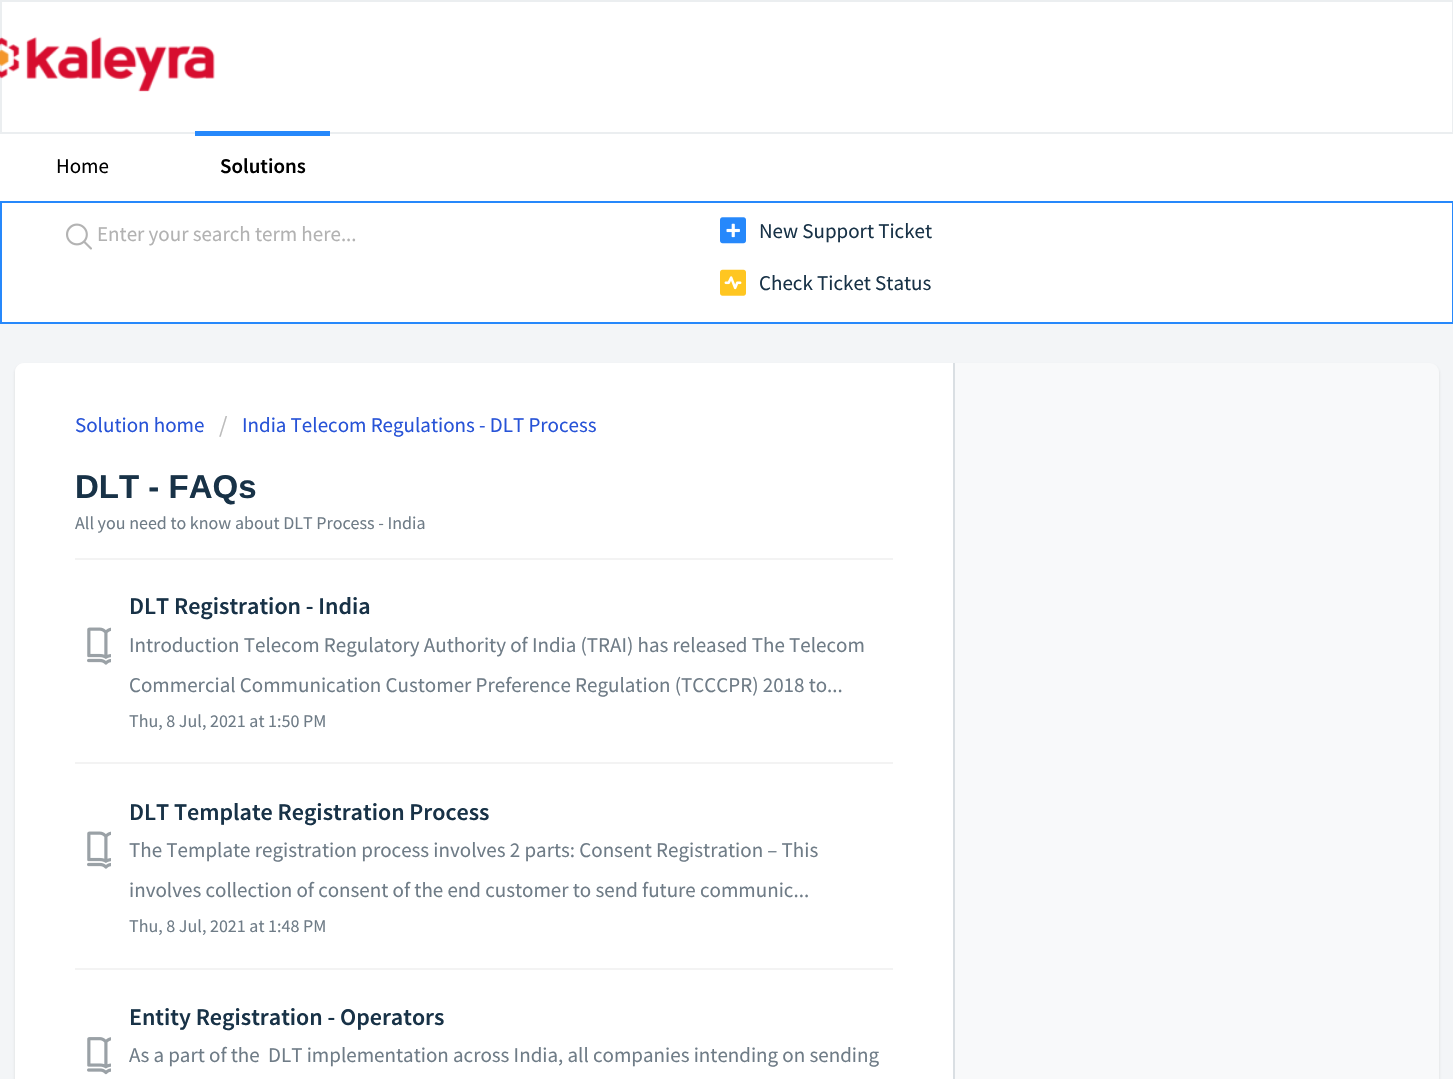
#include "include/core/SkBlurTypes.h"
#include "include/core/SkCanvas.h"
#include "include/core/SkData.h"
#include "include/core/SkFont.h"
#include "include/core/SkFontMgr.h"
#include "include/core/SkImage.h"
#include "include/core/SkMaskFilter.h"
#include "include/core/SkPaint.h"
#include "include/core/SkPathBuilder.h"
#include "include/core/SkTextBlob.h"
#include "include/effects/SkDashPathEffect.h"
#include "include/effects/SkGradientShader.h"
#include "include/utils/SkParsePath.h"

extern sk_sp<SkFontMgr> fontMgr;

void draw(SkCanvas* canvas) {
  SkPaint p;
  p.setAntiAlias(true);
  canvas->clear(SkColorSetRGB(243, 245, 247));
  p.setColor(SK_ColorWHITE);
  canvas->drawRect(SkRect::MakeLTRB(1, 1, 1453, 133), p);
  p.setStyle(SkPaint::kStroke_Style);
  p.setStrokeWidth(2);
  p.setColor(SkColorSetRGB(235, 238, 240));
  canvas->drawRect(SkRect::MakeLTRB(1, 1, 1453, 133), p);
  canvas->drawImageRect(SkImages::DeferredFromEncodedData(SkData::MakeFromFileName("images/1.png")), SkRect::MakeLTRB(0, 36, 215, 92), SkSamplingOptions());
  p.setStyle(SkPaint::kFill_Style);
  p.setColor(SK_ColorWHITE);
  canvas->drawRect(SkRect::MakeLTRB(0, 134, 1453, 201), p);
  p.setColor(SkColorSetRGB(38, 136, 251));
  canvas->drawRect(SkRect::MakeLTRB(195, 131, 330, 136), p);
  p.setColor(SK_ColorWHITE);
  canvas->drawRect(SkRect::MakeLTRB(1, 202, 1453, 323), p);
  p.setStyle(SkPaint::kStroke_Style);
  p.setColor(SkColorSetRGB(38, 136, 251));
  canvas->drawRect(SkRect::MakeLTRB(1, 202, 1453, 323), p);
  canvas->drawImageRect(SkImages::DeferredFromEncodedData(SkData::MakeFromFileName("images/2.png")), SkRect::MakeLTRB(66, 223, 92, 250), SkSamplingOptions());
  canvas->drawImageRect(SkImages::DeferredFromEncodedData(SkData::MakeFromFileName("images/3.png")), SkRect::MakeLTRB(720, 217, 746, 244), SkSamplingOptions());
  canvas->drawImageRect(SkImages::DeferredFromEncodedData(SkData::MakeFromFileName("images/4.png")), SkRect::MakeLTRB(720, 269, 746, 296), SkSamplingOptions());
  p.setStyle(SkPaint::kFill_Style);
  p.setColor(SkColorSetARGB(38, 63, 63, 68));
  p.setMaskFilter(SkMaskFilter::MakeBlur(kNormal_SkBlurStyle, 1.5f));
  canvas->drawRoundRect(SkRect::MakeLTRB(15, 365, 1439, 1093), 9, 9, p);
  p.setMaskFilter(nullptr);
  p.setColor(SkColorSetRGB(248, 249, 250));
  canvas->drawRoundRect(SkRect::MakeLTRB(15, 363, 1439, 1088), 9, 9, p);
  p.setColor(SK_ColorWHITE);
  canvas->drawPath(SkPathBuilder().moveTo(24, 363).lineTo(954, 363).lineTo(954, 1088).lineTo(24, 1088).cubicTo(19, 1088, 15, 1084, 15, 1079).lineTo(15, 372).cubicTo(15, 367, 19, 363, 24, 363).close().detach(), p);
  p.setColor(SkColorSetRGB(218, 223, 227));
  canvas->drawRect(SkRect::MakeLTRB(953, 363, 955, 1079), p);
  p.setColor(SkColorSetRGB(243, 243, 243));
  canvas->drawRect(SkRect::MakeLTRB(75, 558, 893, 560), p);
  canvas->drawImageRect(SkImages::DeferredFromEncodedData(SkData::MakeFromFileName("images/5.png")), SkRect::MakeLTRB(87, 627, 111, 665), SkSamplingOptions());
  canvas->drawRect(SkRect::MakeLTRB(75, 762, 893, 764), p);
  canvas->drawImageRect(SkImages::DeferredFromEncodedData(SkData::MakeFromFileName("images/5.png")), SkRect::MakeLTRB(87, 831, 111, 869), SkSamplingOptions());
  canvas->drawRect(SkRect::MakeLTRB(75, 968, 893, 970), p);
  canvas->drawImageRect(SkImages::DeferredFromEncodedData(SkData::MakeFromFileName("images/6.png")), SkRect::MakeLTRB(87, 1037, 111, 1075), SkSamplingOptions());
  SkFont font1(fontMgr->matchFamilyStyle("Source Sans Pro", SkFontStyle::Normal()), 21);
  font1.setSubpixel(true);
  p.setColor(SK_ColorBLACK);
  canvas->drawString("Home", 56, 173, font1, p);
  SkFont font2(fontMgr->matchFamilyStyle("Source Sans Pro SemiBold", SkFontStyle(600, SkFontStyle::kNormal_Width, SkFontStyle::kUpright_Slant)), 21);
  font2.setSubpixel(true);
  canvas->drawString("Solutions", 220, 173, font2, p);
  p.setColor(SkColorSetRGB(178, 178, 178));
  canvas->drawString("Enter your search term here...", 97, 241, font1, p);
  p.setColor(SkColorSetRGB(24, 50, 71));
  canvas->drawString("New Support Ticket", 759, 238, font1, p);
  canvas->drawString("Check Ticket Status", 759, 290, font1, p);
  p.setColor(SkColorSetRGB(39, 83, 215));
  canvas->drawString("Solution home", 75, 432, font1, p);
  SkFont font3(fontMgr->matchFamilyStyle("Source Sans Pro", SkFontStyle::Normal()), 24);
  font3.setSubpixel(true);
  p.setColor(SkColorSetRGB(187, 187, 187));
  canvas->drawString("/", 219, 433, font3, p);
  p.setColor(SkColorSetRGB(39, 83, 215));
  canvas->drawString("India Telecom Regulations - DLT Process", 242, 432, font1, p);
  SkFont font4(fontMgr->matchFamilyStyle("Liberation Sans", SkFontStyle::Bold()), 33);
  font4.setSubpixel(true);
  p.setColor(SkColorSetRGB(24, 50, 71));
  canvas->drawString("DLT - FAQs", 75, 498, font4, p);
  SkFont font5(fontMgr->matchFamilyStyle("Source Sans Pro", SkFontStyle::Normal()), 18);
  font5.setSubpixel(true);
  p.setColor(SkColorSetRGB(111, 124, 135));
  canvas->drawString("All you need to know about DLT Process - India", 75, 529, font5, p);
  SkFont font6(fontMgr->matchFamilyStyle("Source Sans Pro SemiBold", SkFontStyle(600, SkFontStyle::kNormal_Width, SkFontStyle::kUpright_Slant)), 24);
  font6.setSubpixel(true);
  p.setColor(SkColorSetRGB(24, 50, 71));
  canvas->drawString("DLT Registration - India", 129, 614, font6, p);
  p.setColor(SkColorSetRGB(111, 124, 135));
  canvas->drawString("Introduction Telecom Regulatory Authority of India (TRAI) has released The Telecom", 129, 652, font1, p);
  canvas->drawString("Commercial Communication Customer Preference Regulation (TCCCPR) 2018 to...", 129, 692, font1, p);
  canvas->drawString("Thu, 8 Jul, 2021 at 1:50 PM", 129, 727, font5, p);
  p.setColor(SkColorSetRGB(24, 50, 71));
  canvas->drawString("DLT Template Registration Process", 129, 820, font6, p);
  p.setColor(SkColorSetRGB(111, 124, 135));
  canvas->drawString("The Template registration process involves 2 parts: Consent Registration – This", 129, 857, font1, p);
  canvas->drawString("involves collection of consent of the end customer to send future communic...", 129, 897, font1, p);
  canvas->drawString("Thu, 8 Jul, 2021 at 1:48 PM", 129, 932, font5, p);
  p.setColor(SkColorSetRGB(24, 50, 71));
  canvas->drawString("Entity Registration - Operators", 129, 1025, font6, p);
  p.setColor(SkColorSetRGB(111, 124, 135));
  canvas->drawString("As a part of the  DLT implementation across India, all companies intending on sending", 129, 1062, font1, p);
}
